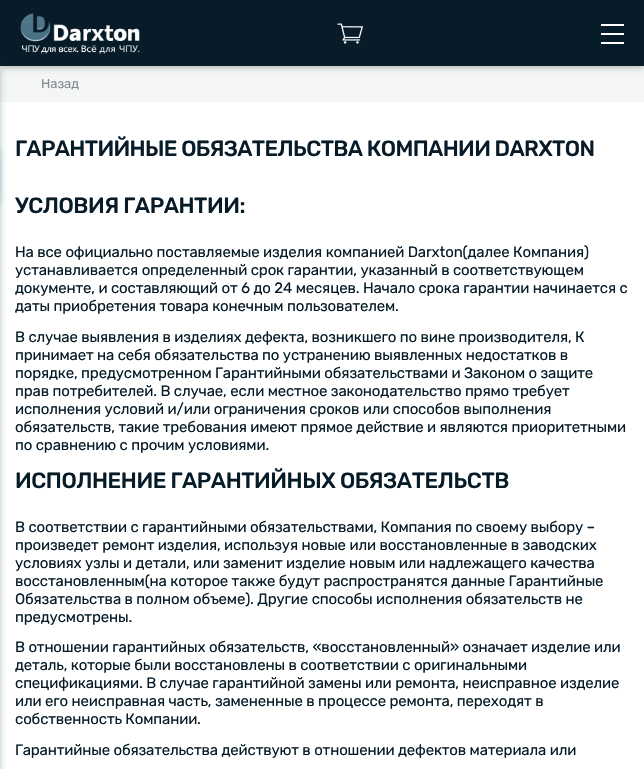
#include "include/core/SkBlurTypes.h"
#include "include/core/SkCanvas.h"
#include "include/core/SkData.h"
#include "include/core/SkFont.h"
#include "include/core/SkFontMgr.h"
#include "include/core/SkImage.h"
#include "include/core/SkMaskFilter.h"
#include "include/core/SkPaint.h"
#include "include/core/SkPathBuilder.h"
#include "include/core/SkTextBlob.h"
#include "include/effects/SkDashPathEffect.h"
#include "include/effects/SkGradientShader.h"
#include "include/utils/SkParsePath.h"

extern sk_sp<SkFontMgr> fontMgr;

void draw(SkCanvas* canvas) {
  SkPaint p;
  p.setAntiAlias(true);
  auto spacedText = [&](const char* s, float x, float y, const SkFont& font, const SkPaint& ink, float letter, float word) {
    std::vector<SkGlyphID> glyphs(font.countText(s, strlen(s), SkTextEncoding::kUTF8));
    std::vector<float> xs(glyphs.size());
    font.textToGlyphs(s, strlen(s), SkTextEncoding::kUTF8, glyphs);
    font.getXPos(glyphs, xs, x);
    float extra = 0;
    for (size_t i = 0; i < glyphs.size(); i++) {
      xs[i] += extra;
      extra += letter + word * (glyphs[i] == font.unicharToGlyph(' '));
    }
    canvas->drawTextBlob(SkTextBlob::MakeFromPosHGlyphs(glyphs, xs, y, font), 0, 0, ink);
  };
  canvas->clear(SK_ColorWHITE);
  p.setColor(SkColorSetRGB(244, 245, 245));
  canvas->drawRect(SkRect::MakeLTRB(0, 66, 644, 102), p);
  p.setColor(SkColorSetARGB(64, 0, 0, 0));
  p.setMaskFilter(SkMaskFilter::MakeBlur(kNormal_SkBlurStyle, 3));
  canvas->drawRect(SkRect::MakeLTRB(0, 2, 644, 68), p);
  p.setMaskFilter(nullptr);
  p.setColor(SkColorSetRGB(7, 28, 40));
  canvas->drawRect(SkRect::MakeLTRB(0, 0, 644, 66), p);
  canvas->drawImageRect(SkImages::DeferredFromEncodedData(SkData::MakeFromFileName("images/1.png")), SkRect::MakeLTRB(20, 13, 140, 54), SkSamplingOptions());
  canvas->drawImageRect(SkImages::DeferredFromEncodedData(SkData::MakeFromFileName("images/2.png")), SkRect::MakeLTRB(337, 23, 363, 44), SkSamplingOptions());
  p.setColor(SK_ColorWHITE);
  canvas->drawRect(SkRect::MakeLTRB(601, 42, 624, 44), p);
  canvas->drawRect(SkRect::MakeLTRB(601, 24, 624, 26), p);
  canvas->drawRect(SkRect::MakeLTRB(601, 33, 624, 35), p);
  p.setColor(SkColorSetARGB(77, 0, 51, 79));
  p.setMaskFilter(SkMaskFilter::MakeBlur(kNormal_SkBlurStyle, 3));
  canvas->drawRect(SkRect::MakeLTRB(-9, 68, 0, 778), p);
  p.setMaskFilter(nullptr);
  p.setColor(SkColorSetARGB(51, 0, 51, 79));
  p.setMaskFilter(SkMaskFilter::MakeBlur(kNormal_SkBlurStyle, 3));
  canvas->drawRect(SkRect::MakeLTRB(-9, 149, 0, 204), p);
  p.setMaskFilter(nullptr);
  SkFont font1(fontMgr->matchFamilyStyle("Rubik", SkFontStyle::Normal()), 13);
  font1.setSubpixel(true);
  p.setColor(SkColorSetRGB(130, 142, 149));
  canvas->drawString("Назад", 41, 88, font1, p);
  SkFont font2(fontMgr->matchFamilyStyle("Rubik", SkFontStyle(500, SkFontStyle::kNormal_Width, SkFontStyle::kUpright_Slant)), 22);
  font2.setSubpixel(true);
  p.setColor(SkColorSetRGB(7, 28, 40));
  spacedText("ГАРАНТИЙНЫЕ ОБЯЗАТЕЛЬСТВА КОМПАНИИ DARXTON", 15, 156, font2, p, -0.65f, 0);
  spacedText("УСЛОВИЯ ГАРАНТИИ:", 15, 213, font2, p, -0.45f, 0);
  SkFont font3(fontMgr->matchFamilyStyle("Rubik", SkFontStyle::Normal()), 15);
  font3.setSubpixel(true);
  spacedText("На все официально поставляемые изделия компанией Darxton(далее Компания)", 15, 257, font3, p, -0.15f, 0);
  spacedText("устанавливается определенный срок гарантии, указанный в соответствующем", 15, 275, font3, p, -0.15f, 0);
  spacedText("документе, и составляющий от 6 до 24 месяцев. Начало срока гарантии начинается с", 15, 293, font3, p, -0.15f, 0);
  spacedText("даты приобретения товара конечным пользователем.", 15, 311, font3, p, -0.15f, 0);
  spacedText("В случае выявления в изделиях дефекта, возникшего по вине производителя, К", 15, 342, font3, p, -0.15f, 0);
  spacedText("принимает на себя обязательства по устранению выявленных недостатков в", 15, 360, font3, p, -0.15f, 0);
  spacedText("порядке, предусмотренном Гарантийными обязательствами и Законом о защите", 15, 378, font3, p, -0.15f, 0);
  spacedText("прав потребителей. В случае, если местное законодательство прямо требует", 15, 396, font3, p, -0.15f, 0);
  spacedText("исполнения условий и/или ограничения сроков или способов выполнения", 15, 414, font3, p, -0.15f, 0);
  spacedText("обязательств, такие требования имеют прямое действие и являются приоритетными", 15, 432, font3, p, -0.15f, 0);
  spacedText("по сравнению с прочим условиями.", 15, 450, font3, p, -0.15f, 0);
  spacedText("ИСПОЛНЕНИЕ ГАРАНТИЙНЫХ ОБЯЗАТЕЛЬСТВ", 15, 488, font2, p, -0.45f, 0);
  spacedText("В соответствии с гарантийными обязательствами, Компания по своему выбору –", 15, 532, font3, p, -0.15f, 0);
  spacedText("произведет ремонт изделия, используя новые или восстановленные в заводских", 15, 550, font3, p, -0.15f, 0);
  spacedText("условиях узлы и детали, или заменит изделие новым или надлежащего качества", 15, 568, font3, p, -0.15f, 0);
  spacedText("восстановленным(на которое также будут распространятся данные Гарантийные", 15, 586, font3, p, -0.15f, 0);
  spacedText("Обязательства в полном объеме). Другие способы исполнения обязательств не", 15, 604, font3, p, -0.15f, 0);
  spacedText("предусмотрены.", 15, 622, font3, p, -0.15f, 0);
  spacedText("В отношении гарантийных обязательств, «восстановленный» означает изделие или", 15, 652, font3, p, -0.15f, 0);
  spacedText("деталь, которые были восстановлены в соответствии с оригинальными", 15, 670, font3, p, -0.15f, 0);
  spacedText("спецификациями. В случае гарантийной замены или ремонта, неисправное изделие", 15, 688, font3, p, -0.15f, 0);
  spacedText("или его неисправная часть, замененные в процессе ремонта, переходят в", 15, 706, font3, p, -0.15f, 0);
  spacedText("собственность Компании.", 15, 724, font3, p, -0.15f, 0);
  spacedText("Гарантийные обязательства действуют в отношении дефектов материала или", 15, 755, font3, p, -0.15f, 0);
}
